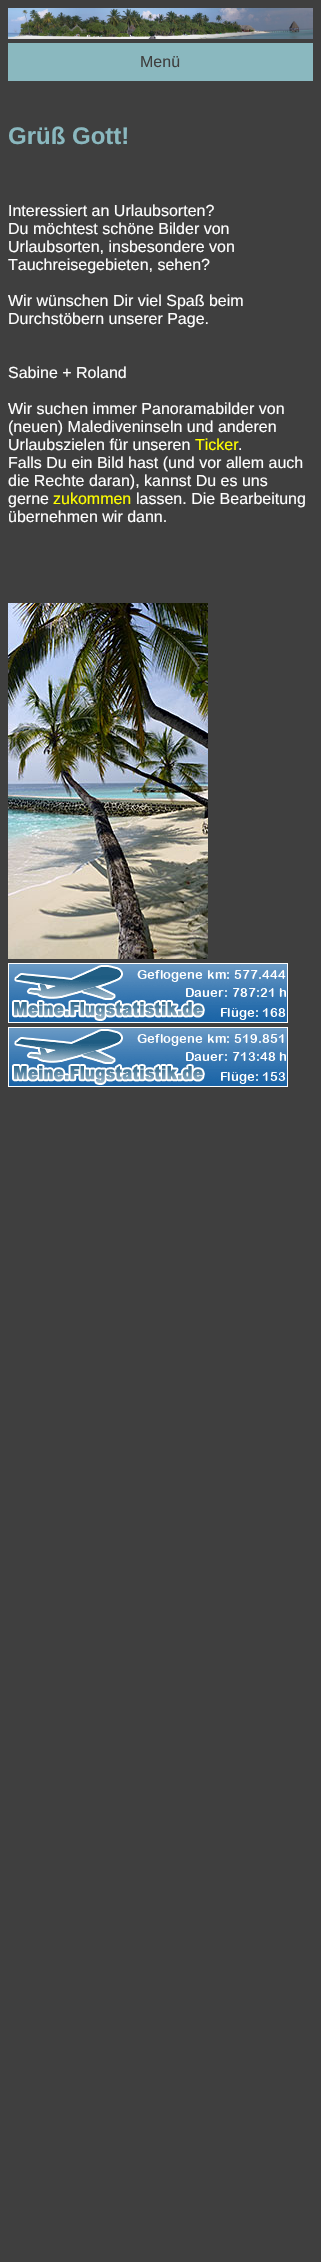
#include "include/core/SkBlurTypes.h"
#include "include/core/SkCanvas.h"
#include "include/core/SkData.h"
#include "include/core/SkFont.h"
#include "include/core/SkFontMgr.h"
#include "include/core/SkImage.h"
#include "include/core/SkMaskFilter.h"
#include "include/core/SkPaint.h"
#include "include/core/SkPathBuilder.h"
#include "include/core/SkTextBlob.h"
#include "include/effects/SkDashPathEffect.h"
#include "include/effects/SkGradientShader.h"
#include "include/utils/SkParsePath.h"

extern sk_sp<SkFontMgr> fontMgr;

void draw(SkCanvas* canvas) {
  SkPaint p;
  p.setAntiAlias(true);
  canvas->clear(SkColorSetRGB(63, 63, 63));
  canvas->drawImageRect(SkImages::DeferredFromEncodedData(SkData::MakeFromFileName("images/1.png")), SkRect::MakeLTRB(8, 8, 313, 39), SkSamplingOptions());
  p.setColor(SkColorSetRGB(138, 184, 191));
  canvas->drawRect(SkRect::MakeLTRB(8, 43, 313, 81), p);
  canvas->drawImageRect(SkImages::DeferredFromEncodedData(SkData::MakeFromFileName("images/2.png")), SkRect::MakeLTRB(8, 603, 208, 959), SkSamplingOptions());
  canvas->drawImageRect(SkImages::DeferredFromEncodedData(SkData::MakeFromFileName("images/3.png")), SkRect::MakeLTRB(8, 963, 288, 1023), SkSamplingOptions());
  canvas->drawImageRect(SkImages::DeferredFromEncodedData(SkData::MakeFromFileName("images/4.png")), SkRect::MakeLTRB(8, 1027, 288, 1087), SkSamplingOptions());
  SkFont font1(fontMgr->matchFamilyStyle("Liberation Sans", SkFontStyle::Normal()), 16);
  font1.setSubpixel(true);
  p.setColor(SkColorSetRGB(63, 63, 63));
  canvas->drawString("Menü", 140, 67, font1, p);
  SkFont font2(fontMgr->matchFamilyStyle("Liberation Sans", SkFontStyle::Bold()), 24);
  font2.setSubpixel(true);
  p.setColor(SkColorSetRGB(138, 184, 191));
  canvas->drawString("Grüß Gott!", 8, 144, font2, p);
  p.setColor(SK_ColorWHITE);
  canvas->drawString("Interessiert an Urlaubsorten?", 8, 216, font1, p);
  canvas->drawString("Du möchtest schöne Bilder von", 8, 234, font1, p);
  canvas->drawString("Urlaubsorten, insbesondere von", 8, 252, font1, p);
  canvas->drawString("Tauchreisegebieten, sehen?", 8, 270, font1, p);
  canvas->drawString("Wir wünschen Dir viel Spaß beim", 8, 306, font1, p);
  canvas->drawString("Durchstöbern unserer Page.", 8, 324, font1, p);
  canvas->drawString("Sabine + Roland", 8, 378, font1, p);
  canvas->drawString("Wir suchen immer Panoramabilder von", 8, 414, font1, p);
  canvas->drawString("(neuen) Malediveninseln und anderen", 8, 432, font1, p);
  canvas->drawString("Urlaubszielen für unseren", 8, 450, font1, p);
  p.setColor(SkColorSetRGB(255, 255, 0));
  canvas->drawString("Ticker", 195, 450, font1, p);
  p.setColor(SK_ColorWHITE);
  canvas->drawString(".", 238, 450, font1, p);
  canvas->drawString("Falls Du ein Bild hast (und vor allem auch", 8, 468, font1, p);
  canvas->drawString("die Rechte daran), kannst Du es uns", 8, 486, font1, p);
  canvas->drawString("gerne", 8, 504, font1, p);
  p.setColor(SkColorSetRGB(255, 255, 0));
  canvas->drawString("zukommen", 53, 504, font1, p);
  p.setColor(SK_ColorWHITE);
  canvas->drawString("lassen. Die Bearbeitung", 136, 504, font1, p);
  canvas->drawString("übernehmen wir dann.", 8, 522, font1, p);
}
